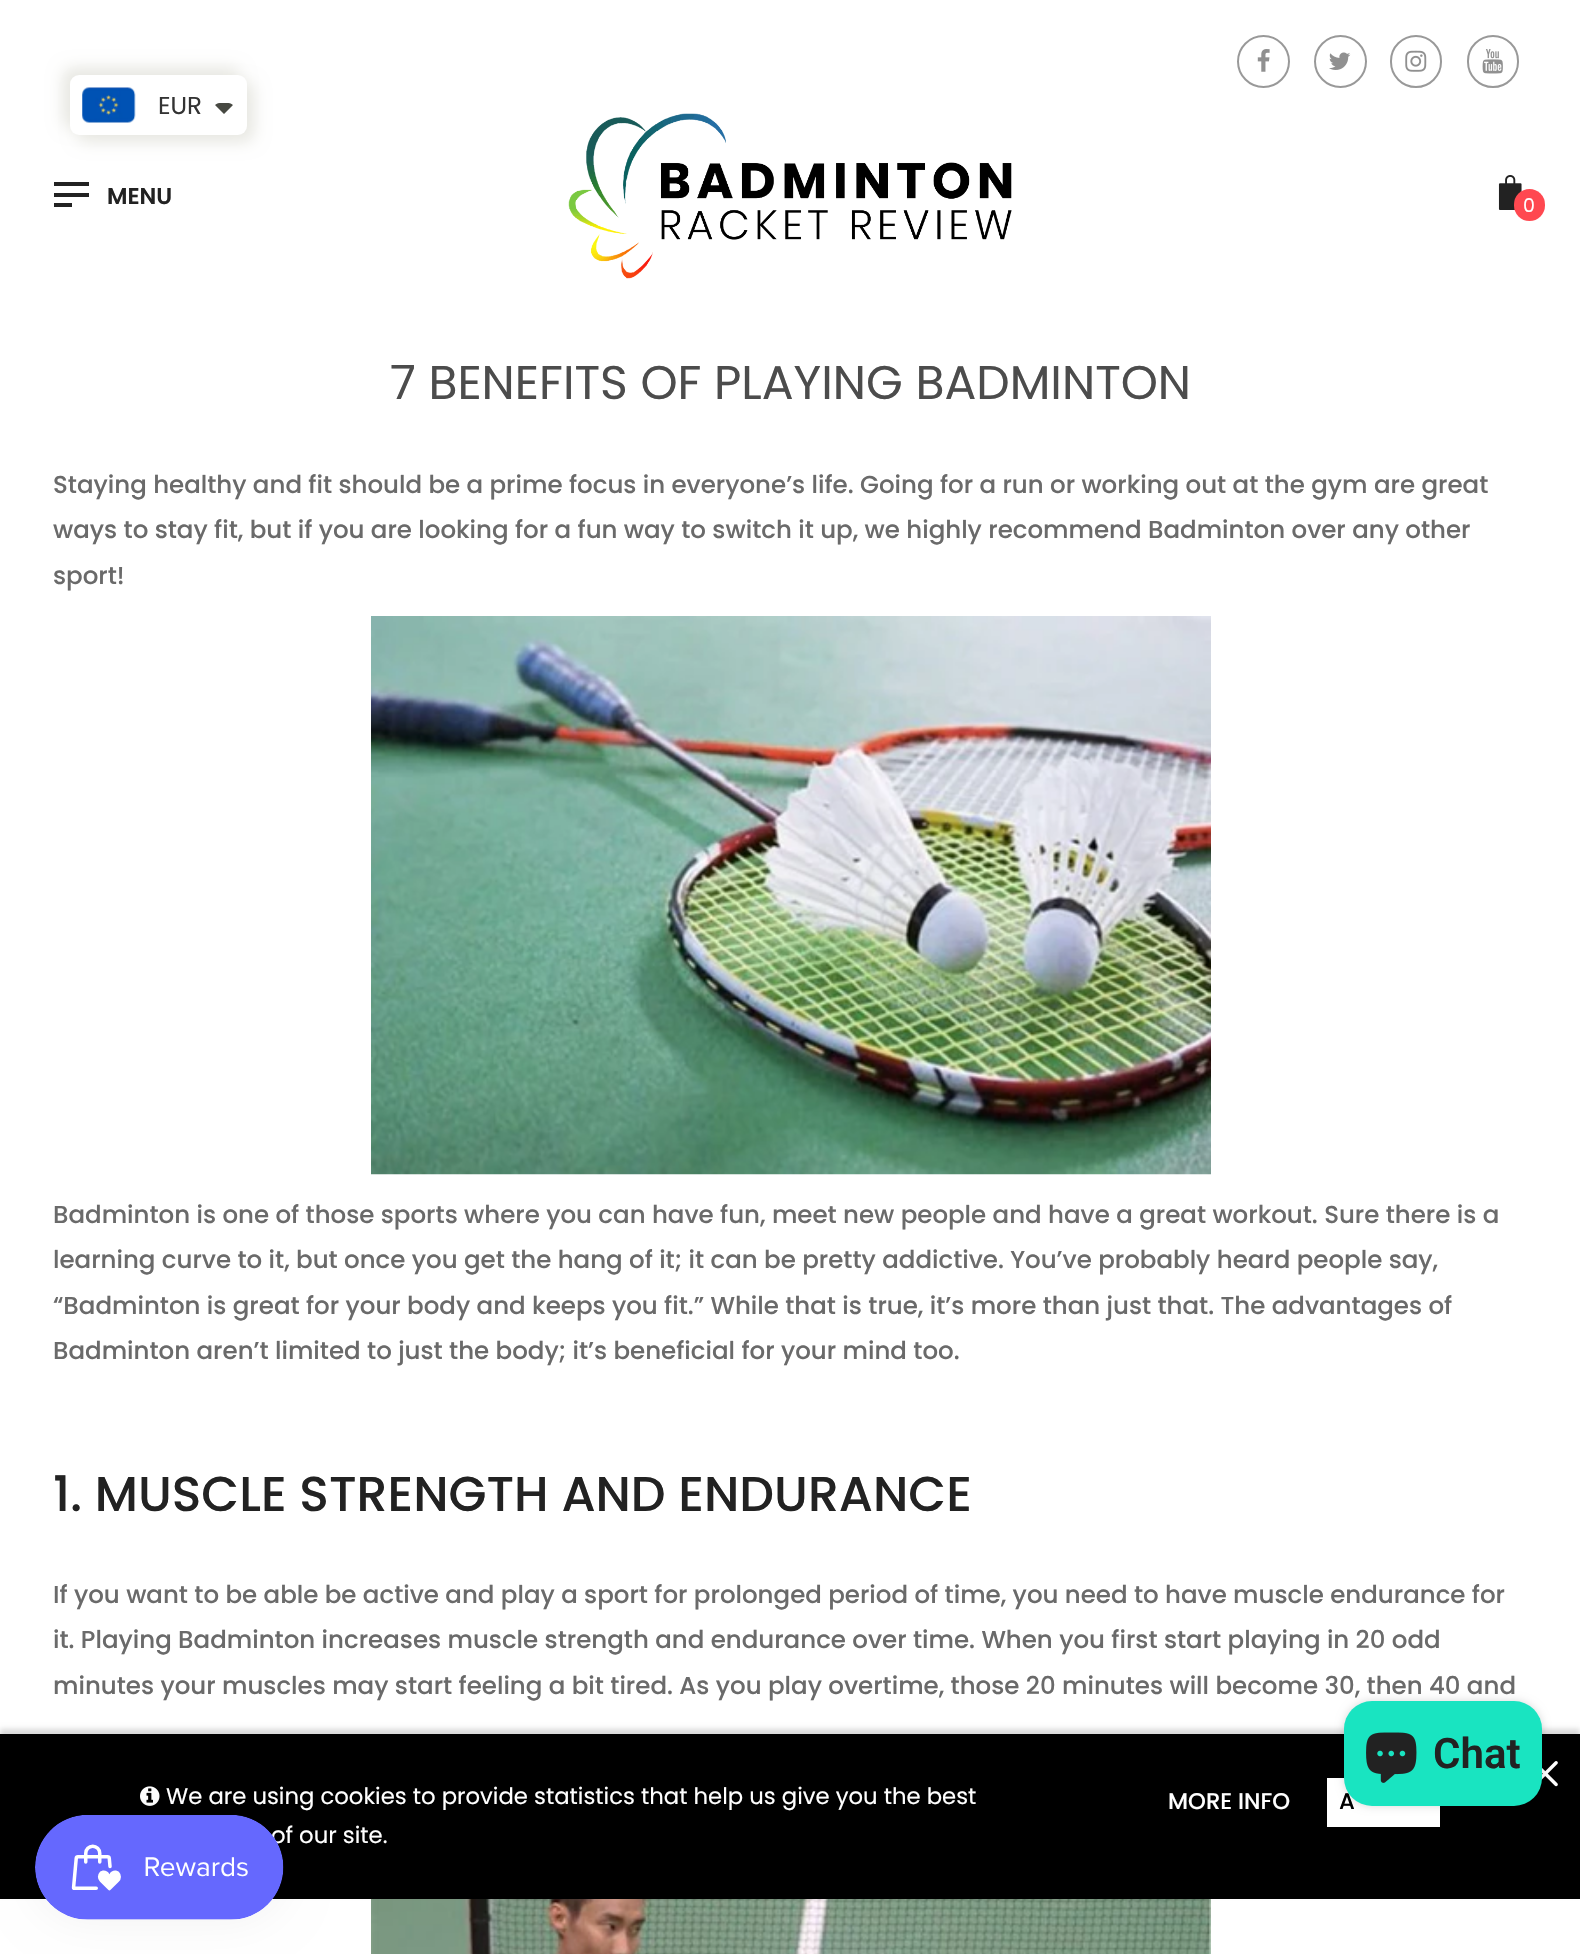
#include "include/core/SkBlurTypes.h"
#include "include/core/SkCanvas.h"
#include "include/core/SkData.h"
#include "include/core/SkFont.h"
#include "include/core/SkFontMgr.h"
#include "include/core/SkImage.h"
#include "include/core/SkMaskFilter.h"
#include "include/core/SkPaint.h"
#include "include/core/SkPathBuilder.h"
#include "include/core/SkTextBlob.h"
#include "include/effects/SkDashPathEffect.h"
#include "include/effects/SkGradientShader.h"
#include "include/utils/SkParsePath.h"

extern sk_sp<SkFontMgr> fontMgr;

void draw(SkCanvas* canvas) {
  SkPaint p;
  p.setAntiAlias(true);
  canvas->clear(SK_ColorWHITE);
  p.setStyle(SkPaint::kStroke_Style);
  p.setStrokeWidth(2);
  p.setColor(SkColorSetRGB(153, 153, 153));
  canvas->drawCircle(1263.5f, 61.5f, 25.5f, p);
  canvas->drawImageRect(SkImages::DeferredFromEncodedData(SkData::MakeFromFileName("images/1.png")), SkRect::MakeLTRB(1257, 49, 1270, 72), SkSamplingOptions());
  canvas->drawCircle(1340.5f, 61.5f, 25.5f, p);
  canvas->drawImageRect(SkImages::DeferredFromEncodedData(SkData::MakeFromFileName("images/2.png")), SkRect::MakeLTRB(1329, 52, 1351, 70), SkSamplingOptions());
  canvas->drawRoundRect(SkRect::MakeLTRB(1391, 36, 1441, 87), 25, 25, p);
  canvas->drawImageRect(SkImages::DeferredFromEncodedData(SkData::MakeFromFileName("images/3.png")), SkRect::MakeLTRB(1405, 50, 1427, 72), SkSamplingOptions());
  canvas->drawRoundRect(SkRect::MakeLTRB(1468, 36, 1518, 87), 25, 25, p);
  canvas->drawImageRect(SkImages::DeferredFromEncodedData(SkData::MakeFromFileName("images/4.png")), SkRect::MakeLTRB(1482, 49, 1503, 74), SkSamplingOptions());
  p.setStyle(SkPaint::kFill_Style);
  p.setColor(SkColorSetRGB(232, 232, 226));
  p.setMaskFilter(SkMaskFilter::MakeBlur(kNormal_SkBlurStyle, 8));
  canvas->drawRoundRect(SkRect::MakeLTRB(63, 68, 240, 128), 9, 9, p);
  p.setMaskFilter(nullptr);
  p.setMaskFilter(SkMaskFilter::MakeBlur(kNormal_SkBlurStyle, 8));
  canvas->drawRoundRect(SkRect::MakeLTRB(77, 82, 254, 142), 9, 9, p);
  p.setMaskFilter(nullptr);
  p.setColor(SK_ColorWHITE);
  canvas->drawRoundRect(SkRect::MakeLTRB(70, 75, 247, 135), 9, 9, p);
  canvas->drawImageRect(SkImages::DeferredFromEncodedData(SkData::MakeFromFileName("images/5.png")), SkRect::MakeLTRB(82, 87, 136, 123), SkSamplingOptions());
  p.setColor(SkColorSetRGB(71, 73, 66));
  canvas->drawPath(SkPathBuilder().moveTo(215, 105).cubicTo(217.5f, 102.5f, 221, 103, 224, 103).cubicTo(227, 103, 230.5f, 102.5f, 233, 105).lineTo(224, 114).close().detach(), p);
  p.setColor(SkColorSetRGB(34, 34, 34));
  canvas->drawRect(SkRect::MakeLTRB(54, 182, 89, 186), p);
  canvas->drawRect(SkRect::MakeLTRB(54, 193, 89, 197), p);
  canvas->drawRect(SkRect::MakeLTRB(54, 203, 72, 207), p);
  canvas->drawImageRect(SkImages::DeferredFromEncodedData(SkData::MakeFromFileName("images/6.png")), SkRect::MakeLTRB(568, 113, 1012, 279), SkSamplingOptions());
  canvas->drawImageRect(SkImages::DeferredFromEncodedData(SkData::MakeFromFileName("images/7.png")), SkRect::MakeLTRB(1498, 175, 1522, 210), SkSamplingOptions());
  p.setColor(SkColorSetRGB(255, 72, 80));
  canvas->drawRoundRect(SkRect::MakeLTRB(1514, 189, 1545, 221), 15.5f, 15.5f, p);
  canvas->drawImageRect(SkImages::DeferredFromEncodedData(SkData::MakeFromFileName("images/8.png")), SkRect::MakeLTRB(371, 616, 1211, 1175), SkSamplingOptions());
  canvas->drawImageRect(SkImages::DeferredFromEncodedData(SkData::MakeFromFileName("images/9.png")), SkRect::MakeLTRB(371, 1899, 1211, 1954), SkSamplingOptions());
  p.setColor(SkColorSetARGB(38, 0, 0, 0));
  p.setMaskFilter(SkMaskFilter::MakeBlur(kNormal_SkBlurStyle, 2.5f));
  canvas->drawRect(SkRect::MakeLTRB(0, 1729, 1580, 1894), p);
  p.setMaskFilter(nullptr);
  p.setColor(SK_ColorBLACK);
  canvas->drawRect(SkRect::MakeLTRB(0, 1734, 1580, 1899), p);
  canvas->drawImageRect(SkImages::DeferredFromEncodedData(SkData::MakeFromFileName("images/13.png")), SkRect::MakeLTRB(140, 1786, 160, 1806), SkSamplingOptions());
  p.setColor(SkColorSetARGB(13, 0, 0, 0));
  p.setMaskFilter(SkMaskFilter::MakeBlur(kNormal_SkBlurStyle, 22));
  canvas->drawRoundRect(SkRect::MakeLTRB(35, 1815, 284, 1920), 52.5f, 52.5f, p);
  p.setMaskFilter(nullptr);
  canvas->drawImageRect(SkImages::DeferredFromEncodedData(SkData::MakeFromFileName("images/12.png")), SkRect::MakeLTRB(1541, 1761, 1558, 1787), SkSamplingOptions());
  p.setColor(SK_ColorWHITE);
  canvas->drawRect(SkRect::MakeLTRB(1327, 1778, 1440, 1827), p);
  p.setColor(SkColorSetARGB(38, 0, 0, 0));
  p.setMaskFilter(SkMaskFilter::MakeBlur(kNormal_SkBlurStyle, 4.5f));
  canvas->drawRoundRect(SkRect::MakeLTRB(1344, 1701, 1542, 1806), 28, 28, p);
  p.setMaskFilter(nullptr);
  SkFont font1(fontMgr->matchFamilyStyle("Poppins", SkFontStyle::Normal()), 24.5f);
  font1.setSubpixel(true);
  p.setColor(SkColorSetRGB(51, 51, 51));
  canvas->drawString("EUR", 158, 114, font1, p);
  SkFont font2(fontMgr->matchFamilyStyle("Poppins", SkFontStyle(600, SkFontStyle::kNormal_Width, SkFontStyle::kUpright_Slant)), 22.75f);
  font2.setSubpixel(true);
  p.setColor(SkColorSetRGB(34, 34, 34));
  canvas->drawString("MENU", 107, 204, font2, p);
  SkFont font3(fontMgr->matchFamilyStyle("Poppins", SkFontStyle::Normal()), 19);
  font3.setSubpixel(true);
  p.setColor(SK_ColorWHITE);
  canvas->drawString("0", 1523, 212, font3, p);
  SkFont font4(fontMgr->matchFamilyStyle("Poppins", SkFontStyle::Normal()), 47.25f);
  font4.setSubpixel(true);
  p.setColor(SkColorSetRGB(76, 76, 76));
  canvas->drawString("7 BENEFITS OF PLAYING BADMINTON", 390, 399, font4, p);
  SkFont font5(fontMgr->matchFamilyStyle("Poppins", SkFontStyle(500, SkFontStyle::kNormal_Width, SkFontStyle::kUpright_Slant)), 24.5f);
  font5.setSubpixel(true);
  p.setColor(SkColorSetRGB(106, 106, 106));
  canvas->drawString("Staying healthy and fit should be a prime focus in everyone’s life. Going for a run or working out at the gym are great", 53, 493, font5, p);
  canvas->drawString("ways to stay fit, but if you are looking for a fun way to switch it up, we highly recommend Badminton over any other", 53, 538, font5, p);
  canvas->drawString("sport!", 53, 584, font5, p);
  canvas->drawString("Badminton is one of those sports where you can have fun, meet new people and have a great workout. Sure there is a", 53, 1223, font5, p);
  canvas->drawString("learning curve to it, but once you get the hang of it; it can be pretty addictive. You’ve probably heard people say,", 53, 1268, font5, p);
  canvas->drawString("“Badminton is great for your body and keeps you fit.” While that is true, it’s more than just that. The advantages of", 53, 1314, font5, p);
  canvas->drawString("Badminton aren’t limited to just the body; it’s beneficial for your mind too.", 53, 1359, font5, p);
  SkFont font6(fontMgr->matchFamilyStyle("Poppins", SkFontStyle(500, SkFontStyle::kNormal_Width, SkFontStyle::kUpright_Slant)), 49);
  font6.setSubpixel(true);
  p.setColor(SkColorSetRGB(34, 34, 34));
  canvas->drawString("1. MUSCLE STRENGTH AND ENDURANCE", 53, 1511, font6, p);
  p.setColor(SkColorSetRGB(106, 106, 106));
  canvas->drawString("If you want to be able be active and play a sport for prolonged period of time, you need to have muscle endurance for", 53, 1603, font5, p);
  canvas->drawString("it. Playing Badminton increases muscle strength and endurance over time. When you first start playing in 20 odd", 53, 1648, font5, p);
  canvas->drawString("minutes your muscles may start feeling a bit tired. As you play overtime, those 20 minutes will become 30, then 40 and", 53, 1694, font5, p);
  SkFont font7(fontMgr->matchFamilyStyle("Poppins", SkFontStyle::Normal()), 22.75f);
  font7.setSubpixel(true);
  p.setColor(SK_ColorWHITE);
  canvas->drawString("We are using cookies to provide statistics that help us give you the best", 166, 1804, font7, p);
  canvas->drawString("of our site.", 271, 1843, font7, p);
  canvas->drawImageRect(SkImages::DeferredFromEncodedData(SkData::MakeFromFileName("images/10.png")), SkRect::MakeLTRB(35, 1815, 284, 1920), SkSamplingOptions());
  SkFont font8(fontMgr->matchFamilyStyle("Poppins", SkFontStyle(500, SkFontStyle::kNormal_Width, SkFontStyle::kUpright_Slant)), 22.75f);
  font8.setSubpixel(true);
  canvas->drawString("MORE INFO", 1168, 1809, font8, p);
  p.setColor(SK_ColorBLACK);
  canvas->drawString("A", 1339, 1809, font8, p);
  p.setColor(SkColorSetRGB(25, 228, 193));
  canvas->drawRoundRect(SkRect::MakeLTRB(1344, 1701, 1542, 1806), 28, 28, p);
  SkFont font9(fontMgr->matchFamilyStyle("Roboto", SkFontStyle(600, SkFontStyle::kNormal_Width, SkFontStyle::kUpright_Slant)), 42);
  font9.setSubpixel(true);
  p.setColor(SkColorSetRGB(34, 34, 34));
  canvas->drawString("Chat", 1433, 1768, font9, p);
  canvas->drawImageRect(SkImages::DeferredFromEncodedData(SkData::MakeFromFileName("images/11.png")), SkRect::MakeLTRB(1366, 1732, 1417, 1783), SkSamplingOptions());
}
